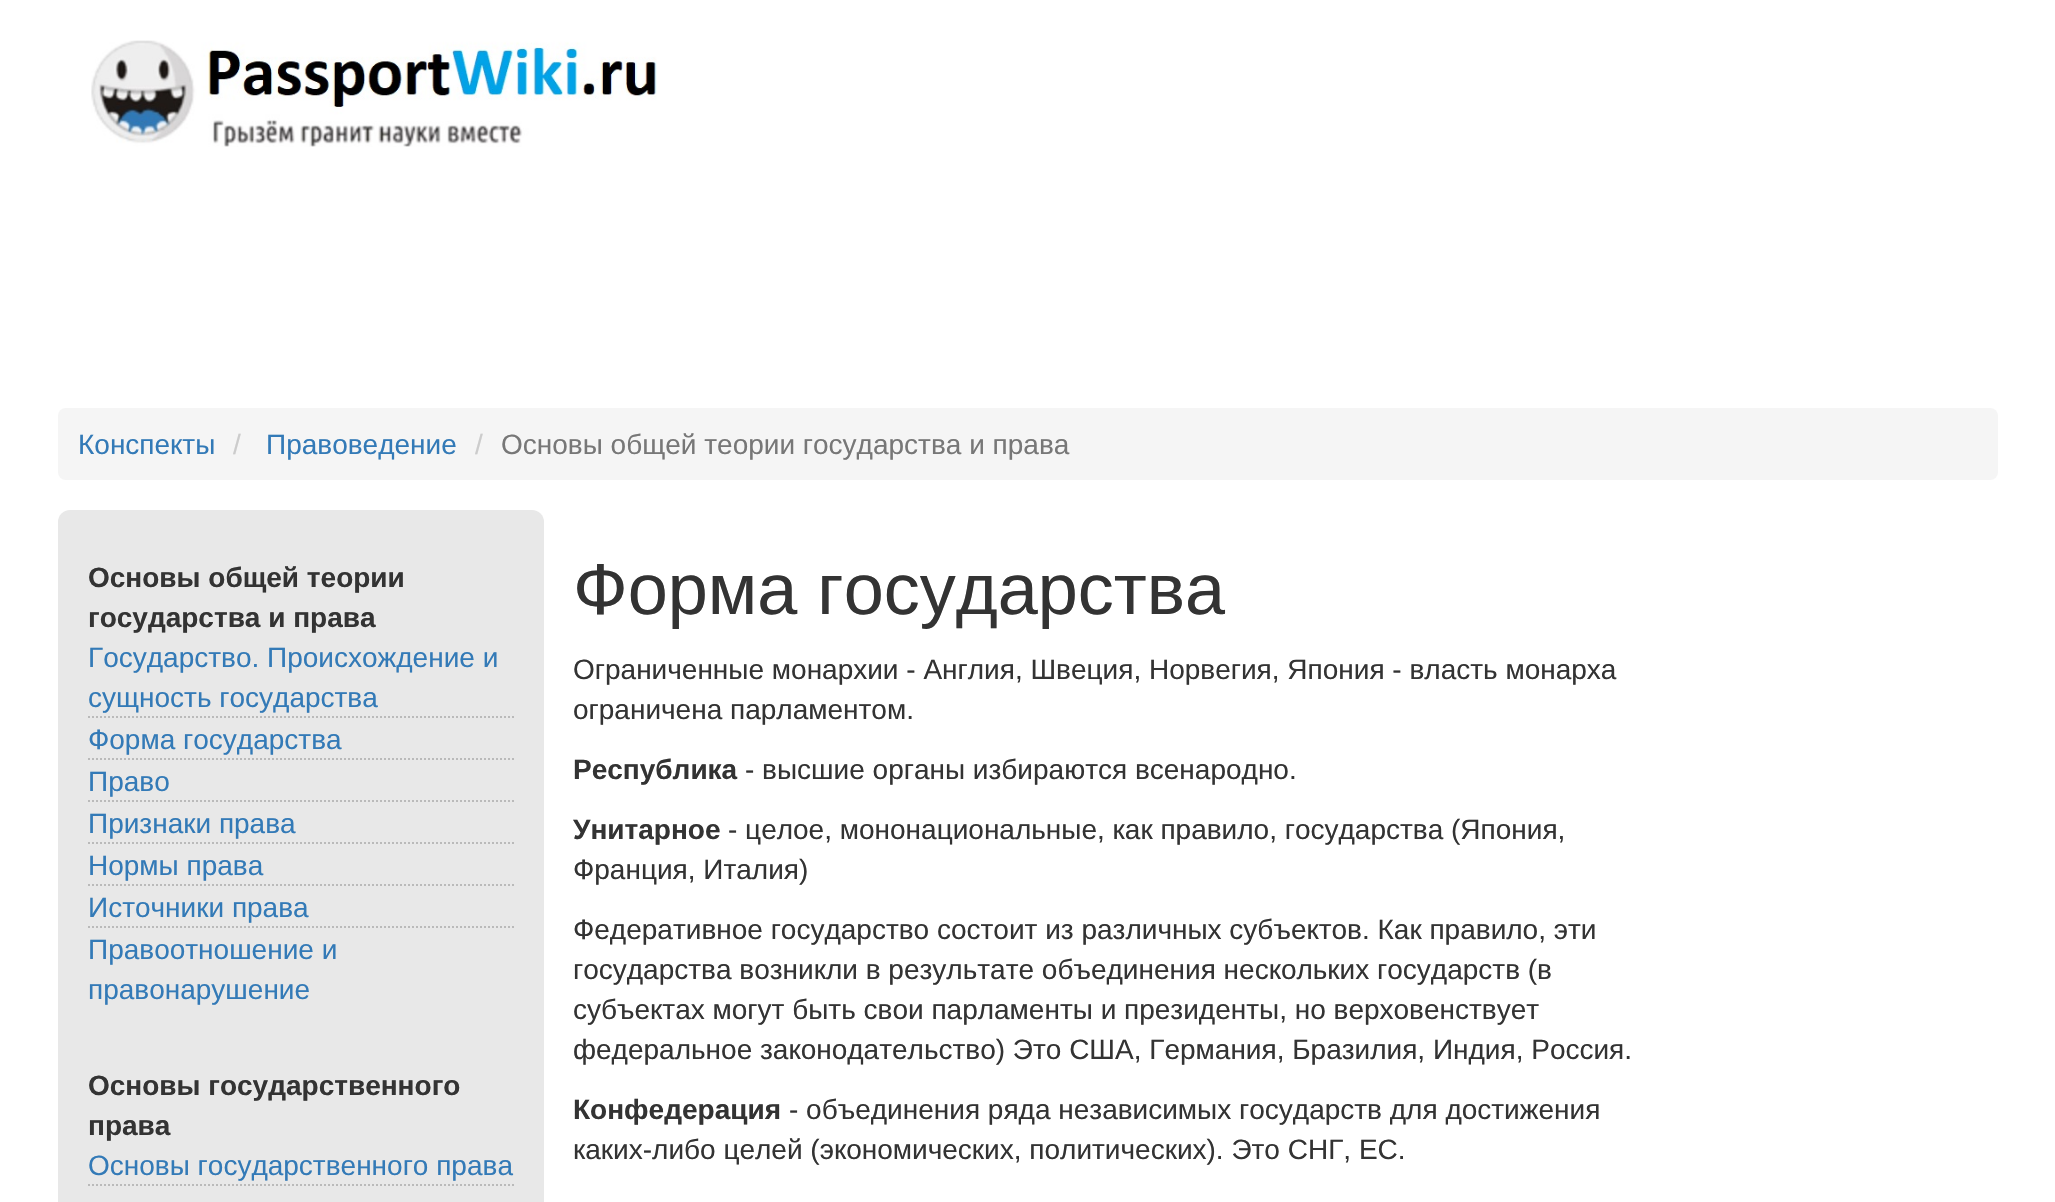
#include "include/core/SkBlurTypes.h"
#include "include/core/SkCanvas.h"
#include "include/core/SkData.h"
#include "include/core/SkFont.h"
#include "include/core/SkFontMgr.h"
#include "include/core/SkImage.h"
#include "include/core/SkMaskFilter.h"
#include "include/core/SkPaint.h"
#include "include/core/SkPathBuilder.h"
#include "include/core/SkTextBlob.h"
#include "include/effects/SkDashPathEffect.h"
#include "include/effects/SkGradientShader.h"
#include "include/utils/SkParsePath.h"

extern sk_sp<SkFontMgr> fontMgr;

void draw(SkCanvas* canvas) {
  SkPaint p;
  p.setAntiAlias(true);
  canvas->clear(SK_ColorWHITE);
  canvas->drawImageRect(SkImages::DeferredFromEncodedData(SkData::MakeFromFileName("images/1.png")), SkRect::MakeLTRB(91, 40, 657, 147), SkSamplingOptions());
  p.setColor(SkColorSetRGB(245, 245, 245));
  canvas->drawRoundRect(SkRect::MakeLTRB(58, 408, 1998, 480), 8, 8, p);
  p.setColor(SkColorSetRGB(232, 232, 232));
  canvas->drawRoundRect(SkRect::MakeLTRB(58, 510, 544, 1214), 12, 12, p);
  p.setStyle(SkPaint::kStroke_Style);
  p.setStrokeWidth(2);
  p.setColor(SkColorSetRGB(186, 186, 186));
  p.setPathEffect(SkDashPathEffect::Make({{2, 2}}, 0));
  canvas->drawPath(SkPathBuilder().moveTo(88, 717).lineTo(514, 717).detach(), p);
  p.setPathEffect(nullptr);
  p.setPathEffect(SkDashPathEffect::Make({{2, 2}}, 0));
  canvas->drawPath(SkPathBuilder().moveTo(88, 759).lineTo(514, 759).detach(), p);
  p.setPathEffect(nullptr);
  p.setPathEffect(SkDashPathEffect::Make({{2, 2}}, 0));
  canvas->drawPath(SkPathBuilder().moveTo(88, 801).lineTo(514, 801).detach(), p);
  p.setPathEffect(nullptr);
  p.setPathEffect(SkDashPathEffect::Make({{2, 2}}, 0));
  canvas->drawPath(SkPathBuilder().moveTo(88, 843).lineTo(514, 843).detach(), p);
  p.setPathEffect(nullptr);
  p.setPathEffect(SkDashPathEffect::Make({{2, 2}}, 0));
  canvas->drawPath(SkPathBuilder().moveTo(88, 885).lineTo(514, 885).detach(), p);
  p.setPathEffect(nullptr);
  p.setPathEffect(SkDashPathEffect::Make({{2, 2}}, 0));
  canvas->drawPath(SkPathBuilder().moveTo(88, 927).lineTo(514, 927).detach(), p);
  p.setPathEffect(nullptr);
  p.setPathEffect(SkDashPathEffect::Make({{2, 2}}, 0));
  canvas->drawPath(SkPathBuilder().moveTo(88, 1185).lineTo(514, 1185).detach(), p);
  p.setPathEffect(nullptr);
  SkFont font1(fontMgr->matchFamilyStyle("Liberation Sans", SkFontStyle::Normal()), 28);
  font1.setSubpixel(true);
  p.setStyle(SkPaint::kFill_Style);
  p.setColor(SkColorSetRGB(51, 122, 183));
  canvas->drawString("Конспекты", 78, 454, font1, p);
  p.setColor(SkColorSetRGB(204, 204, 204));
  canvas->drawString("/", 233, 454, font1, p);
  p.setColor(SkColorSetRGB(51, 122, 183));
  canvas->drawString("Правоведение", 266, 454, font1, p);
  p.setColor(SkColorSetRGB(204, 204, 204));
  canvas->drawString("/", 475, 454, font1, p);
  p.setColor(SkColorSetRGB(119, 119, 119));
  canvas->drawString("Основы общей теории государства и права", 501, 454, font1, p);
  SkFont font2(fontMgr->matchFamilyStyle("Liberation Sans", SkFontStyle::Bold()), 28);
  font2.setSubpixel(true);
  p.setColor(SkColorSetRGB(51, 51, 51));
  canvas->drawString("Основы общей теории", 88, 587, font2, p);
  canvas->drawString("государства и права", 88, 627, font2, p);
  p.setColor(SkColorSetRGB(51, 122, 183));
  canvas->drawString("Госудаpство. Пpоисхождение и", 88, 667, font1, p);
  canvas->drawString("сущность государства", 88, 707, font1, p);
  canvas->drawString("Фоpма госудаpства", 88, 749, font1, p);
  canvas->drawString("Пpаво", 88, 791, font1, p);
  canvas->drawString("Пpизнаки пpава", 88, 833, font1, p);
  canvas->drawString("Hоpмы пpава", 88, 875, font1, p);
  canvas->drawString("Источники пpава", 88, 917, font1, p);
  canvas->drawString("Пpавоотношение и", 88, 959, font1, p);
  canvas->drawString("пpавонаpушение", 88, 999, font1, p);
  p.setColor(SkColorSetRGB(51, 51, 51));
  canvas->drawString("Основы государственного", 88, 1095, font2, p);
  canvas->drawString("права", 88, 1135, font2, p);
  p.setColor(SkColorSetRGB(51, 122, 183));
  canvas->drawString("Основы государственного права", 88, 1175, font1, p);
  SkFont font3(fontMgr->matchFamilyStyle("Liberation Sans", SkFontStyle::Normal()), 72);
  font3.setSubpixel(true);
  p.setColor(SkColorSetRGB(51, 51, 51));
  canvas->drawString("Фоpма госудаpства", 573, 614, font3, p);
  canvas->drawString("Ограниченные монархии - Англия, Швеция, Норвегия, Япония - власть монарха", 573, 679, font1, p);
  canvas->drawString("ограничена парламентом.", 573, 719, font1, p);
  canvas->drawString("Республика", 573, 779, font2, p);
  canvas->drawString("- высшие органы избираются всенародно.", 745, 779, font1, p);
  canvas->drawString("Унитарное", 573, 839, font2, p);
  canvas->drawString("- целое, мононациональные, как правило, государства (Япония,", 728, 839, font1, p);
  canvas->drawString("Франция, Италия)", 573, 879, font1, p);
  canvas->drawString("Федеративное государство состоит из различных субъектов. Как правило, эти", 573, 939, font1, p);
  canvas->drawString("государства возникли в результате объединения нескольких государств (в", 573, 979, font1, p);
  canvas->drawString("субъектах могут быть свои парламенты и президенты, но верховенствует", 573, 1019, font1, p);
  canvas->drawString("федеральное законодательство) Это США, Германия, Бразилия, Индия, Россия.", 573, 1059, font1, p);
  canvas->drawString("Конфедерация", 573, 1119, font2, p);
  canvas->drawString("- объединения ряда независимых государств для достижения", 789, 1119, font1, p);
  canvas->drawString("каких-либо целей (экономических, политических). Это СНГ, ЕС.", 573, 1159, font1, p);
}
